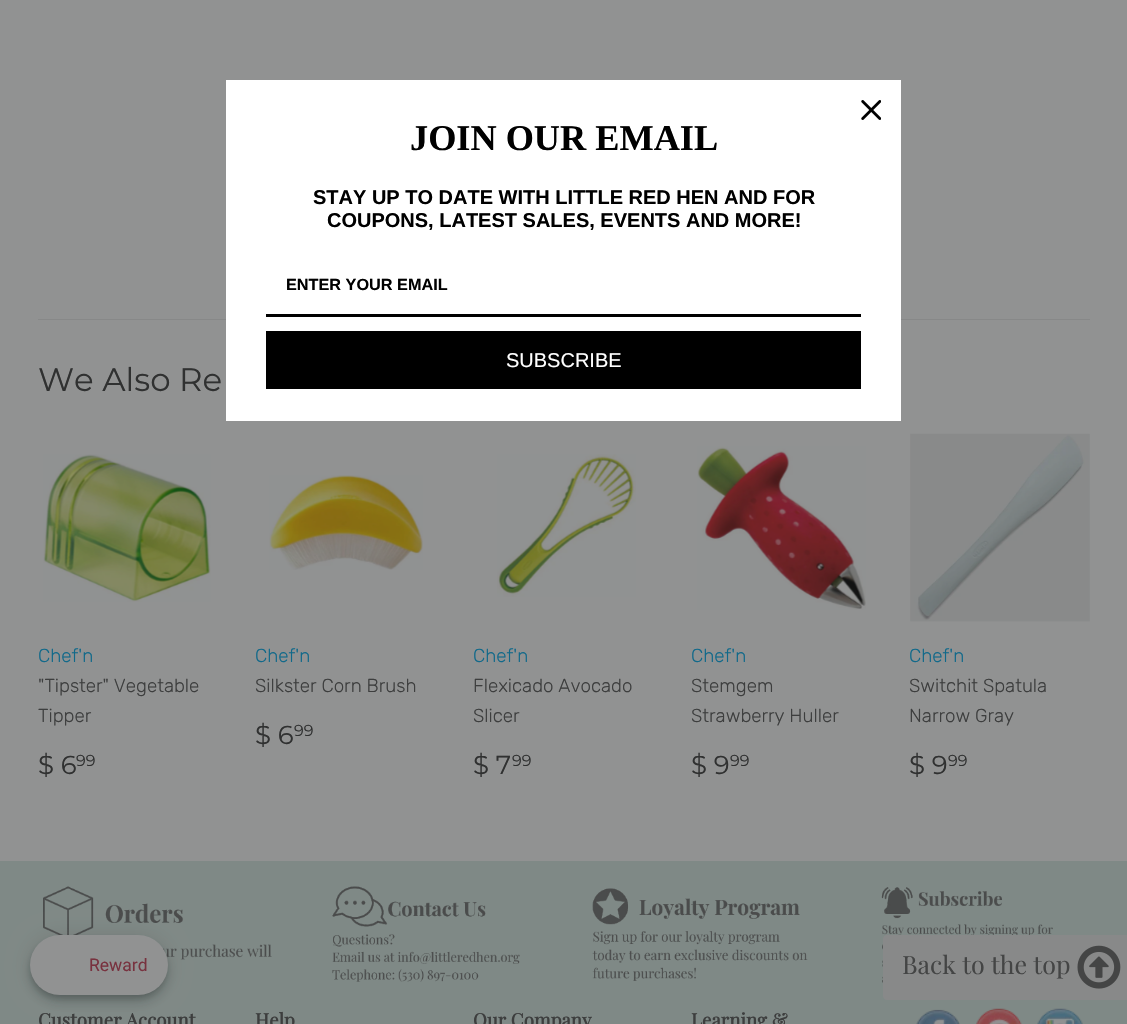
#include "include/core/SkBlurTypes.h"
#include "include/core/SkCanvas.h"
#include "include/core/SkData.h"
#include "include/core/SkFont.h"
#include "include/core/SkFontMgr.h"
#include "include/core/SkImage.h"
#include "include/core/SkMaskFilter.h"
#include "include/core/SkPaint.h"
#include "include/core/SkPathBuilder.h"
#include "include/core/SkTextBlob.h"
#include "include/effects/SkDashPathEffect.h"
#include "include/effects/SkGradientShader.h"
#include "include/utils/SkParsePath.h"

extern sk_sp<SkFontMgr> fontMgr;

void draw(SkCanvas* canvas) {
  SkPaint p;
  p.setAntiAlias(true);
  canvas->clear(SkColorSetRGB(145, 146, 146));
  p.setColor(SkColorSetRGB(135, 136, 136));
  canvas->drawRect(SkRect::MakeLTRB(38, 319, 1090, 320), p);
  p.setColor(SK_ColorWHITE);
  canvas->drawRect(SkRect::MakeLTRB(226, 80, 901, 421), p);
  canvas->drawImageRect(SkImages::DeferredFromEncodedData(SkData::MakeFromFileName("images/1.png")), SkRect::MakeLTRB(861, 100, 881, 120), SkSamplingOptions());
  p.setColor(SK_ColorBLACK);
  canvas->drawRect(SkRect::MakeLTRB(266, 314, 861, 317), p);
  canvas->drawRect(SkRect::MakeLTRB(266, 331, 861, 389), p);
  canvas->drawImageRect(SkImages::DeferredFromEncodedData(SkData::MakeFromFileName("images/2.png")), SkRect::MakeLTRB(43, 454, 211, 602), SkSamplingOptions());
  canvas->drawImageRect(SkImages::DeferredFromEncodedData(SkData::MakeFromFileName("images/3.png")), SkRect::MakeLTRB(269, 475, 423, 570), SkSamplingOptions());
  canvas->drawImageRect(SkImages::DeferredFromEncodedData(SkData::MakeFromFileName("images/4.png")), SkRect::MakeLTRB(497, 454, 636, 597), SkSamplingOptions());
  canvas->drawImageRect(SkImages::DeferredFromEncodedData(SkData::MakeFromFileName("images/5.png")), SkRect::MakeLTRB(697, 446, 866, 610), SkSamplingOptions());
  canvas->drawImageRect(SkImages::DeferredFromEncodedData(SkData::MakeFromFileName("images/6.png")), SkRect::MakeLTRB(910, 433, 1090, 622), SkSamplingOptions());
  p.setColor(SkColorSetRGB(127, 137, 134));
  canvas->drawRect(SkRect::MakeLTRB(0, 861, 1127, 1024), p);
  canvas->drawImageRect(SkImages::DeferredFromEncodedData(SkData::MakeFromFileName("images/8.png")), SkRect::MakeLTRB(43, 886, 272, 960), SkSamplingOptions());
  p.setColor(SkColorSetARGB(31, 17, 18, 18));
  p.setMaskFilter(SkMaskFilter::MakeBlur(kNormal_SkBlurStyle, 11));
  canvas->drawRoundRect(SkRect::MakeLTRB(30, 936, 168, 996), 30, 30, p);
  p.setMaskFilter(nullptr);
  p.setColor(SkColorSetARGB(36, 17, 18, 18));
  p.setMaskFilter(SkMaskFilter::MakeBlur(kNormal_SkBlurStyle, 6));
  canvas->drawRoundRect(SkRect::MakeLTRB(30, 943, 168, 1003), 30, 30, p);
  p.setMaskFilter(nullptr);
  p.setColor(SkColorSetARGB(51, 17, 18, 18));
  p.setMaskFilter(SkMaskFilter::MakeBlur(kNormal_SkBlurStyle, 3));
  canvas->drawRoundRect(SkRect::MakeLTRB(31, 940, 166, 998), 29, 29, p);
  p.setMaskFilter(nullptr);
  p.setColor(SkColorSetRGB(145, 146, 146));
  canvas->drawRoundRect(SkRect::MakeLTRB(30, 935, 168, 995), 30, 30, p);
  canvas->drawImageRect(SkImages::DeferredFromEncodedData(SkData::MakeFromFileName("images/11.png")), SkRect::MakeLTRB(881, 887, 1053, 983), SkSamplingOptions());
  p.setColor(SkColorSetRGB(136, 137, 137));
  canvas->drawPath(SkPathBuilder().moveTo(887, 935).lineTo(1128, 935).lineTo(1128, 1000).lineTo(887, 1000).cubicTo(885, 1000, 883, 998, 883, 996).lineTo(883, 939).cubicTo(883, 937, 885, 935, 887, 935).close().detach(), p);
  canvas->drawImageRect(SkImages::DeferredFromEncodedData(SkData::MakeFromFileName("images/7.png")), SkRect::MakeLTRB(1077, 945, 1121, 989), SkSamplingOptions());
  canvas->drawImageRect(SkImages::DeferredFromEncodedData(SkData::MakeFromFileName("images/9.png")), SkRect::MakeLTRB(332, 886, 520, 982), SkSamplingOptions());
  canvas->drawImageRect(SkImages::DeferredFromEncodedData(SkData::MakeFromFileName("images/10.png")), SkRect::MakeLTRB(592, 888, 808, 981), SkSamplingOptions());
  canvas->drawImageRect(SkImages::DeferredFromEncodedData(SkData::MakeFromFileName("images/12.png")), SkRect::MakeLTRB(916, 1009, 960, 1024), SkSamplingOptions());
  canvas->drawImageRect(SkImages::DeferredFromEncodedData(SkData::MakeFromFileName("images/13.png")), SkRect::MakeLTRB(976, 1008, 1022, 1024), SkSamplingOptions());
  canvas->drawImageRect(SkImages::DeferredFromEncodedData(SkData::MakeFromFileName("images/14.png")), SkRect::MakeLTRB(1037, 1008, 1083, 1024), SkSamplingOptions());
  SkFont font1(fontMgr->matchFamilyStyle("Liberation Serif", SkFontStyle::Bold()), 36.25f);
  font1.setSubpixel(true);
  p.setColor(SK_ColorBLACK);
  canvas->drawString("JOIN OUR EMAIL", 410, 150, font1, p);
  SkFont font2(fontMgr->matchFamilyStyle("Liberation Sans", SkFontStyle::Bold()), 20);
  font2.setSubpixel(true);
  canvas->drawString("STAY UP TO DATE WITH LITTLE RED HEN AND FOR", 313, 204, font2, p);
  canvas->drawString("COUPONS, LATEST SALES, EVENTS AND MORE!", 327, 227, font2, p);
  SkFont font3(fontMgr->matchFamilyStyle("Liberation Sans", SkFontStyle::Bold()), 16.25f);
  font3.setSubpixel(true);
  canvas->drawString("ENTER YOUR EMAIL", 286, 290, font3, p);
  SkFont font4(fontMgr->matchFamilyStyle("Liberation Sans", SkFontStyle::Normal()), 20);
  font4.setSubpixel(true);
  p.setColor(SK_ColorWHITE);
  canvas->drawString("SUBSCRIBE", 506, 367, font4, p);
  SkFont font5(fontMgr->matchFamilyStyle("Montserrat", SkFontStyle::Normal()), 32.5f);
  font5.setSubpixel(true);
  p.setColor(SkColorSetRGB(48, 49, 49));
  canvas->drawString("We Also Re", 38, 391, font5, p);
  SkFont font6(fontMgr->matchFamilyStyle("Rubik", SkFontStyle(300, SkFontStyle::kNormal_Width, SkFontStyle::kUpright_Slant)), 18.75f);
  font6.setSubpixel(true);
  p.setColor(SkColorSetRGB(17, 105, 138));
  canvas->drawString("Chef'n", 38, 662, font6, p);
  p.setColor(SkColorSetRGB(61, 62, 62));
  canvas->drawString("\"Tipster\" Vegetable", 38, 692, font6, p);
  canvas->drawString("Tipper", 38, 722, font6, p);
  SkFont font7(fontMgr->matchFamilyStyle("Montserrat", SkFontStyle::Normal()), 26);
  font7.setSubpixel(true);
  p.setColor(SkColorSetRGB(48, 49, 49));
  canvas->drawString("$ 6", 38, 774, font7, p);
  SkFont font8(fontMgr->matchFamilyStyle("Montserrat", SkFontStyle::Normal()), 16);
  font8.setSubpixel(true);
  canvas->drawString("99", 76, 766, font8, p);
  p.setColor(SkColorSetRGB(17, 105, 138));
  canvas->drawString("Chef'n", 255, 662, font6, p);
  p.setColor(SkColorSetRGB(61, 62, 62));
  canvas->drawString("Silkster Corn Brush", 255, 692, font6, p);
  p.setColor(SkColorSetRGB(48, 49, 49));
  canvas->drawString("$ 6", 255, 744, font7, p);
  canvas->drawString("99", 294, 736, font8, p);
  p.setColor(SkColorSetRGB(17, 105, 138));
  canvas->drawString("Chef'n", 473, 662, font6, p);
  p.setColor(SkColorSetRGB(61, 62, 62));
  canvas->drawString("Flexicado Avocado", 473, 692, font6, p);
  canvas->drawString("Slicer", 473, 722, font6, p);
  p.setColor(SkColorSetRGB(48, 49, 49));
  canvas->drawString("$ 7", 473, 774, font7, p);
  canvas->drawString("99", 512, 766, font8, p);
  p.setColor(SkColorSetRGB(17, 105, 138));
  canvas->drawString("Chef'n", 691, 662, font6, p);
  p.setColor(SkColorSetRGB(61, 62, 62));
  canvas->drawString("Stemgem", 691, 692, font6, p);
  canvas->drawString("Strawberry Huller", 691, 722, font6, p);
  p.setColor(SkColorSetRGB(48, 49, 49));
  canvas->drawString("$ 9", 691, 774, font7, p);
  canvas->drawString("99", 730, 766, font8, p);
  p.setColor(SkColorSetRGB(17, 105, 138));
  canvas->drawString("Chef'n", 909, 662, font6, p);
  p.setColor(SkColorSetRGB(61, 62, 62));
  canvas->drawString("Switchit Spatula", 909, 692, font6, p);
  canvas->drawString("Narrow Gray", 909, 722, font6, p);
  p.setColor(SkColorSetRGB(48, 49, 49));
  canvas->drawString("$ 9", 909, 774, font7, p);
  canvas->drawString("99", 948, 766, font8, p);
  SkFont font9(fontMgr->matchFamilyStyle("Roboto", SkFontStyle::Normal()), 17.5f);
  font9.setSubpixel(true);
  p.setColor(SkColorSetRGB(120, 50, 63));
  canvas->drawString("Reward", 89, 971, font9, p);
  SkFont font10(fontMgr->matchFamilyStyle("Playfair Display", SkFontStyle::Normal()), 25);
  font10.setSubpixel(true);
  p.setColor(SkColorSetRGB(68, 69, 69));
  canvas->drawString("Back to the top", 902, 974, font10, p);
  SkFont font11(fontMgr->matchFamilyStyle("Playfair Display", SkFontStyle::Bold()), 18.75f);
  font11.setSubpixel(true);
  p.setColor(SkColorSetRGB(61, 62, 62));
  canvas->drawString("Customer Account", 38, 1027, font11, p);
  canvas->drawString("Help", 255, 1027, font11, p);
  canvas->drawString("Our Company", 473, 1027, font11, p);
  canvas->drawString("Learning &", 691, 1027, font11, p);
}
